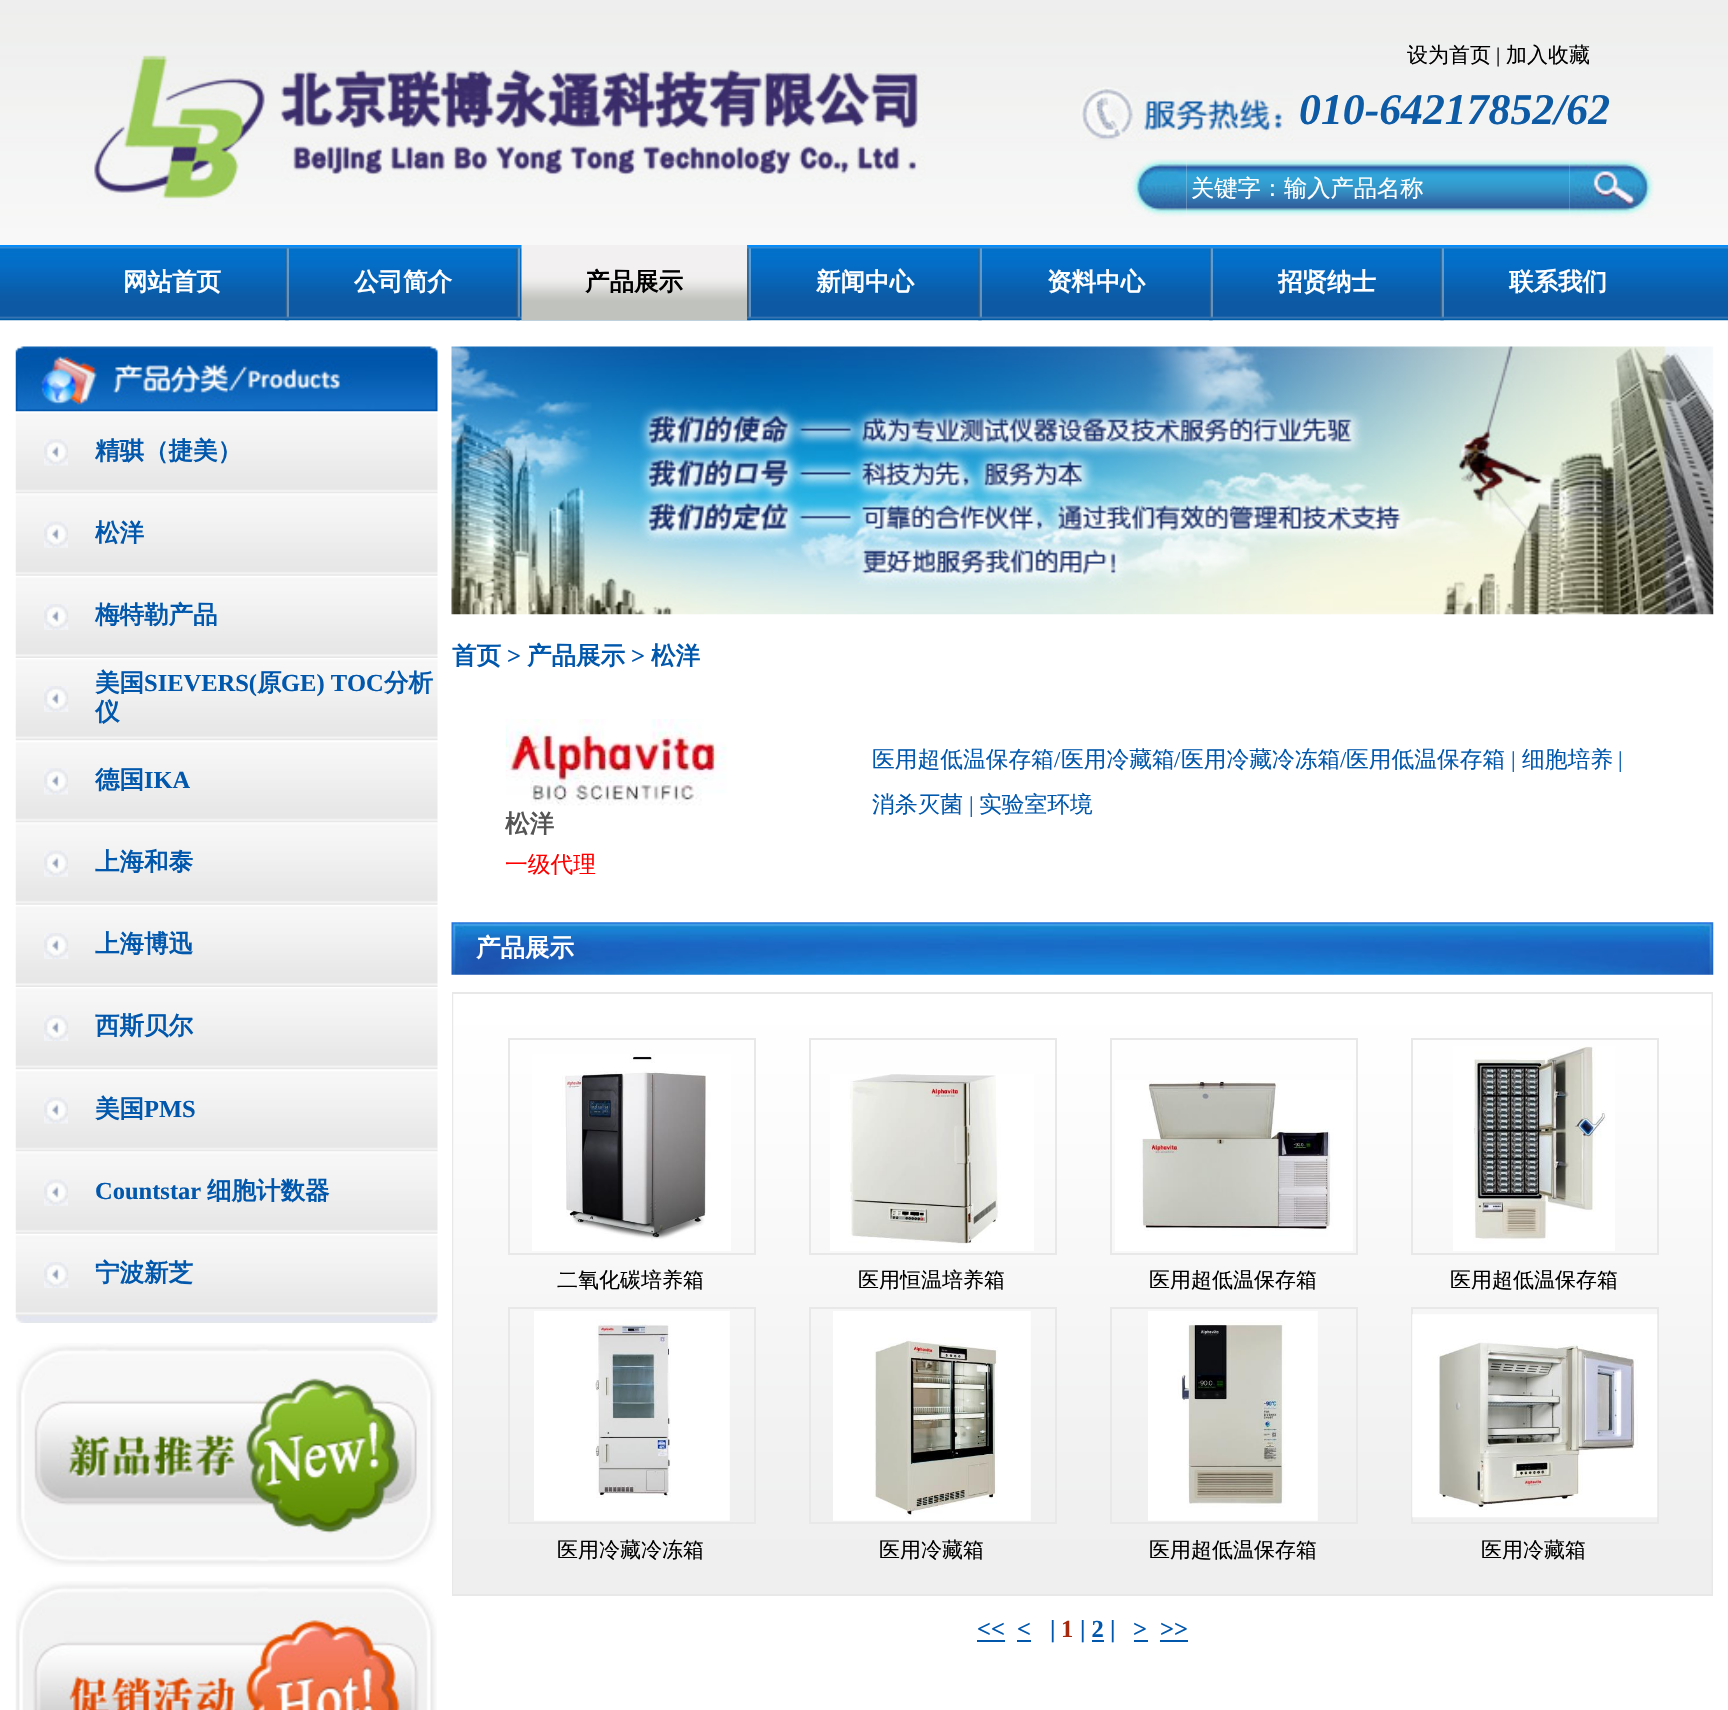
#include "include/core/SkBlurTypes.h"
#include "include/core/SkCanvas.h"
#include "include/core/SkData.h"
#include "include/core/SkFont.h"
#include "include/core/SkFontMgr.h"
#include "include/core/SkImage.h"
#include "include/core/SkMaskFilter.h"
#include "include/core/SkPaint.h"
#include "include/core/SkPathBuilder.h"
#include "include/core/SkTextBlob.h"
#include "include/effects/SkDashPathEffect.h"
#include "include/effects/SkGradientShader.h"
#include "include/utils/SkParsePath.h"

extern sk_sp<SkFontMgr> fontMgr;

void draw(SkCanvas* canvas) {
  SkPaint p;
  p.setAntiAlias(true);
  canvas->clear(SK_ColorWHITE);
  canvas->drawImageRect(SkImages::DeferredFromEncodedData(SkData::MakeFromFileName("images/1.png")), SkRect::MakeLTRB(0, 0, 1728, 245), SkSamplingOptions());
  canvas->drawImageRect(SkImages::DeferredFromEncodedData(SkData::MakeFromFileName("images/2.png")), SkRect::MakeLTRB(86, 55, 925, 209), SkSamplingOptions());
  canvas->drawImageRect(SkImages::DeferredFromEncodedData(SkData::MakeFromFileName("images/3.png")), SkRect::MakeLTRB(1080, 86, 1293, 141), SkSamplingOptions());
  canvas->drawImageRect(SkImages::DeferredFromEncodedData(SkData::MakeFromFileName("images/5.png")), SkRect::MakeLTRB(1186, 159, 1570, 216), SkSamplingOptions());
  canvas->drawImageRect(SkImages::DeferredFromEncodedData(SkData::MakeFromFileName("images/4.png")), SkRect::MakeLTRB(1127, 159, 1187, 217), SkSamplingOptions());
  canvas->drawImageRect(SkImages::DeferredFromEncodedData(SkData::MakeFromFileName("images/6.png")), SkRect::MakeLTRB(1569, 158, 1654, 218), SkSamplingOptions());
  canvas->drawImageRect(SkImages::DeferredFromEncodedData(SkData::MakeFromFileName("images/7.png")), SkRect::MakeLTRB(0, 245, 1728, 321), SkSamplingOptions());
  canvas->drawImageRect(SkImages::DeferredFromEncodedData(SkData::MakeFromFileName("images/8.png")), SkRect::MakeLTRB(285, 248, 289, 321), SkSamplingOptions());
  canvas->drawImageRect(SkImages::DeferredFromEncodedData(SkData::MakeFromFileName("images/8.png")), SkRect::MakeLTRB(516, 248, 520, 321), SkSamplingOptions());
  canvas->drawImageRect(SkImages::DeferredFromEncodedData(SkData::MakeFromFileName("images/9.png")), SkRect::MakeLTRB(521, 245, 748, 321), SkSamplingOptions());
  canvas->drawImageRect(SkImages::DeferredFromEncodedData(SkData::MakeFromFileName("images/10.png")), SkRect::MakeLTRB(747, 245, 751, 321), SkSamplingOptions());
  canvas->drawImageRect(SkImages::DeferredFromEncodedData(SkData::MakeFromFileName("images/8.png")), SkRect::MakeLTRB(978, 248, 982, 321), SkSamplingOptions());
  canvas->drawImageRect(SkImages::DeferredFromEncodedData(SkData::MakeFromFileName("images/8.png")), SkRect::MakeLTRB(1209, 248, 1213, 321), SkSamplingOptions());
  canvas->drawImageRect(SkImages::DeferredFromEncodedData(SkData::MakeFromFileName("images/8.png")), SkRect::MakeLTRB(1440, 248, 1444, 321), SkSamplingOptions());
  canvas->drawImageRect(SkImages::DeferredFromEncodedData(SkData::MakeFromFileName("images/11.png")), SkRect::MakeLTRB(15, 346, 438, 412), SkSamplingOptions());
  canvas->drawImageRect(SkImages::DeferredFromEncodedData(SkData::MakeFromFileName("images/12.png")), SkRect::MakeLTRB(15, 413, 438, 494), SkSamplingOptions());
  canvas->drawImageRect(SkImages::DeferredFromEncodedData(SkData::MakeFromFileName("images/13.png")), SkRect::MakeLTRB(44, 439, 68, 466), SkSamplingOptions());
  canvas->drawImageRect(SkImages::DeferredFromEncodedData(SkData::MakeFromFileName("images/14.png")), SkRect::MakeLTRB(15, 493, 438, 576), SkSamplingOptions());
  canvas->drawImageRect(SkImages::DeferredFromEncodedData(SkData::MakeFromFileName("images/15.png")), SkRect::MakeLTRB(44, 521, 68, 548), SkSamplingOptions());
  canvas->drawImageRect(SkImages::DeferredFromEncodedData(SkData::MakeFromFileName("images/16.png")), SkRect::MakeLTRB(15, 577, 438, 658), SkSamplingOptions());
  canvas->drawImageRect(SkImages::DeferredFromEncodedData(SkData::MakeFromFileName("images/17.png")), SkRect::MakeLTRB(44, 604, 69, 630), SkSamplingOptions());
  canvas->drawImageRect(SkImages::DeferredFromEncodedData(SkData::MakeFromFileName("images/18.png")), SkRect::MakeLTRB(15, 659, 438, 741), SkSamplingOptions());
  canvas->drawImageRect(SkImages::DeferredFromEncodedData(SkData::MakeFromFileName("images/19.png")), SkRect::MakeLTRB(44, 686, 69, 712), SkSamplingOptions());
  canvas->drawImageRect(SkImages::DeferredFromEncodedData(SkData::MakeFromFileName("images/12.png")), SkRect::MakeLTRB(15, 742, 438, 823), SkSamplingOptions());
  canvas->drawImageRect(SkImages::DeferredFromEncodedData(SkData::MakeFromFileName("images/13.png")), SkRect::MakeLTRB(44, 768, 68, 795), SkSamplingOptions());
  canvas->drawImageRect(SkImages::DeferredFromEncodedData(SkData::MakeFromFileName("images/14.png")), SkRect::MakeLTRB(15, 822, 438, 905), SkSamplingOptions());
  canvas->drawImageRect(SkImages::DeferredFromEncodedData(SkData::MakeFromFileName("images/15.png")), SkRect::MakeLTRB(44, 850, 68, 877), SkSamplingOptions());
  canvas->drawImageRect(SkImages::DeferredFromEncodedData(SkData::MakeFromFileName("images/16.png")), SkRect::MakeLTRB(15, 906, 438, 987), SkSamplingOptions());
  canvas->drawImageRect(SkImages::DeferredFromEncodedData(SkData::MakeFromFileName("images/17.png")), SkRect::MakeLTRB(44, 933, 69, 959), SkSamplingOptions());
  canvas->drawImageRect(SkImages::DeferredFromEncodedData(SkData::MakeFromFileName("images/18.png")), SkRect::MakeLTRB(15, 988, 438, 1070), SkSamplingOptions());
  canvas->drawImageRect(SkImages::DeferredFromEncodedData(SkData::MakeFromFileName("images/19.png")), SkRect::MakeLTRB(44, 1015, 69, 1041), SkSamplingOptions());
  canvas->drawImageRect(SkImages::DeferredFromEncodedData(SkData::MakeFromFileName("images/12.png")), SkRect::MakeLTRB(15, 1071, 438, 1152), SkSamplingOptions());
  canvas->drawImageRect(SkImages::DeferredFromEncodedData(SkData::MakeFromFileName("images/13.png")), SkRect::MakeLTRB(44, 1097, 68, 1124), SkSamplingOptions());
  canvas->drawImageRect(SkImages::DeferredFromEncodedData(SkData::MakeFromFileName("images/14.png")), SkRect::MakeLTRB(15, 1151, 438, 1234), SkSamplingOptions());
  canvas->drawImageRect(SkImages::DeferredFromEncodedData(SkData::MakeFromFileName("images/15.png")), SkRect::MakeLTRB(44, 1179, 68, 1206), SkSamplingOptions());
  canvas->drawImageRect(SkImages::DeferredFromEncodedData(SkData::MakeFromFileName("images/16.png")), SkRect::MakeLTRB(15, 1235, 438, 1316), SkSamplingOptions());
  canvas->drawImageRect(SkImages::DeferredFromEncodedData(SkData::MakeFromFileName("images/17.png")), SkRect::MakeLTRB(44, 1262, 69, 1288), SkSamplingOptions());
  canvas->drawImageRect(SkImages::DeferredFromEncodedData(SkData::MakeFromFileName("images/20.png")), SkRect::MakeLTRB(15, 1316, 438, 1323), SkSamplingOptions());
  canvas->drawImageRect(SkImages::DeferredFromEncodedData(SkData::MakeFromFileName("images/21.png")), SkRect::MakeLTRB(16, 1343, 437, 1567), SkSamplingOptions());
  canvas->drawImageRect(SkImages::DeferredFromEncodedData(SkData::MakeFromFileName("images/22.png")), SkRect::MakeLTRB(15, 1581, 437, 1710), SkSamplingOptions());
  canvas->drawImageRect(SkImages::DeferredFromEncodedData(SkData::MakeFromFileName("images/23.png")), SkRect::MakeLTRB(451, 346, 1714, 615), SkSamplingOptions());
  canvas->drawImageRect(SkImages::DeferredFromEncodedData(SkData::MakeFromFileName("images/24.png")), SkRect::MakeLTRB(505, 719, 727, 806), SkSamplingOptions());
  canvas->drawImageRect(SkImages::DeferredFromEncodedData(SkData::MakeFromFileName("images/25.png")), SkRect::MakeLTRB(451, 922, 1714, 975), SkSamplingOptions());
  p.setStyle(SkPaint::kStroke_Style);
  p.setStrokeWidth(2);
  p.setColor(SkColorSetRGB(232, 232, 232));
  canvas->drawRect(SkRect::MakeLTRB(453, 993, 1712, 1595), p);
  canvas->drawImageRect(SkImages::DeferredFromEncodedData(SkData::MakeFromFileName("images/26.png")), SkRect::MakeLTRB(453, 994, 1712, 1594), SkSamplingOptions());
  canvas->drawRect(SkRect::MakeLTRB(509, 1039, 755, 1254), p);
  canvas->drawImageRect(SkImages::DeferredFromEncodedData(SkData::MakeFromFileName("images/27.png")), SkRect::MakeLTRB(532, 1054, 731, 1251), SkSamplingOptions());
  canvas->drawRect(SkRect::MakeLTRB(810, 1039, 1056, 1254), p);
  canvas->drawImageRect(SkImages::DeferredFromEncodedData(SkData::MakeFromFileName("images/28.png")), SkRect::MakeLTRB(830, 1074, 1034, 1251), SkSamplingOptions());
  canvas->drawRect(SkRect::MakeLTRB(1111, 1039, 1357, 1254), p);
  canvas->drawImageRect(SkImages::DeferredFromEncodedData(SkData::MakeFromFileName("images/29.png")), SkRect::MakeLTRB(1115, 1080, 1353, 1251), SkSamplingOptions());
  canvas->drawRect(SkRect::MakeLTRB(1412, 1039, 1658, 1254), p);
  canvas->drawImageRect(SkImages::DeferredFromEncodedData(SkData::MakeFromFileName("images/30.png")), SkRect::MakeLTRB(1453, 1046, 1615, 1251), SkSamplingOptions());
  canvas->drawRect(SkRect::MakeLTRB(509, 1308, 755, 1523), p);
  canvas->drawImageRect(SkImages::DeferredFromEncodedData(SkData::MakeFromFileName("images/31.png")), SkRect::MakeLTRB(534, 1311, 730, 1521), SkSamplingOptions());
  canvas->drawRect(SkRect::MakeLTRB(810, 1308, 1056, 1523), p);
  canvas->drawImageRect(SkImages::DeferredFromEncodedData(SkData::MakeFromFileName("images/32.png")), SkRect::MakeLTRB(833, 1311, 1031, 1521), SkSamplingOptions());
  canvas->drawRect(SkRect::MakeLTRB(1111, 1308, 1357, 1523), p);
  canvas->drawImageRect(SkImages::DeferredFromEncodedData(SkData::MakeFromFileName("images/33.png")), SkRect::MakeLTRB(1148, 1311, 1318, 1521), SkSamplingOptions());
  canvas->drawRect(SkRect::MakeLTRB(1412, 1308, 1658, 1523), p);
  canvas->drawImageRect(SkImages::DeferredFromEncodedData(SkData::MakeFromFileName("images/34.png")), SkRect::MakeLTRB(1412, 1314, 1658, 1518), SkSamplingOptions());
  p.setStyle(SkPaint::kFill_Style);
  p.setColor(SkColorSetRGB(1, 87, 172));
  canvas->drawRect(SkRect::MakeLTRB(977, 1640, 1005, 1642), p);
  canvas->drawRect(SkRect::MakeLTRB(1017, 1640, 1031, 1642), p);
  canvas->drawRect(SkRect::MakeLTRB(1092, 1640, 1104, 1642), p);
  canvas->drawRect(SkRect::MakeLTRB(1134, 1640, 1148, 1642), p);
  canvas->drawRect(SkRect::MakeLTRB(1160, 1640, 1188, 1642), p);
  SkFont font1(fontMgr->matchFamilyStyle("WenQuanYi Zen Hei", SkFontStyle(500, SkFontStyle::kNormal_Width, SkFontStyle::kUpright_Slant)), 21);
  font1.setSubpixel(true);
  p.setColor(SK_ColorBLACK);
  canvas->drawString("设为首页", 1407, 62, font1, p);
  SkFont font2(fontMgr->matchFamilyStyle("Liberation Serif", SkFontStyle::Normal()), 21);
  font2.setSubpixel(true);
  canvas->drawString("|", 1496, 62, font2, p);
  canvas->drawString("加入收藏", 1506, 62, font1, p);
  SkFont font3(fontMgr->matchFamilyStyle("Liberation Serif", SkFontStyle::BoldItalic()), 43.75f);
  font3.setSubpixel(true);
  p.setColor(SkColorSetRGB(13, 90, 165));
  canvas->drawString("010-64217852/62", 1299, 124, font3, p);
  SkFont font4(fontMgr->matchFamilyStyle("WenQuanYi Zen Hei", SkFontStyle(500, SkFontStyle::kNormal_Width, SkFontStyle::kUpright_Slant)), 23.25f);
  font4.setSubpixel(true);
  p.setColor(SK_ColorWHITE);
  canvas->drawString("关键字：输入产品名称", 1191, 196, font4, p);
  SkFont font5(fontMgr->matchFamilyStyle("WenQuanYi Zen Hei", SkFontStyle::Bold()), 24.5f);
  font5.setSubpixel(true);
  canvas->drawString("网站首页", 123, 290, font5, p);
  canvas->drawString("公司简介", 354, 290, font5, p);
  p.setColor(SK_ColorBLACK);
  canvas->drawString("产品展示", 585, 290, font5, p);
  p.setColor(SK_ColorWHITE);
  canvas->drawString("新闻中心", 816, 290, font5, p);
  canvas->drawString("资料中心", 1047, 290, font5, p);
  canvas->drawString("招贤纳士", 1278, 290, font5, p);
  canvas->drawString("联系我们", 1509, 290, font5, p);
  p.setColor(SkColorSetRGB(1, 87, 172));
  canvas->drawString("精骐（捷美）", 95, 459, font5, p);
  canvas->drawString("松洋", 95, 541, font5, p);
  canvas->drawString("梅特勒产品", 95, 623, font5, p);
  canvas->drawString("美国", 95, 691, font5, p);
  SkFont font6(fontMgr->matchFamilyStyle("Liberation Serif", SkFontStyle::Bold()), 24.5f);
  font6.setSubpixel(true);
  canvas->drawString("SIEVERS(", 144, 691, font6, p);
  canvas->drawString("原", 257, 691, font5, p);
  canvas->drawString("GE) TOC", 281, 691, font6, p);
  canvas->drawString("分析", 384, 691, font5, p);
  canvas->drawString("仪", 95, 720, font5, p);
  canvas->drawString("德国", 95, 788, font5, p);
  canvas->drawString("IKA", 144, 788, font6, p);
  canvas->drawString("上海和泰", 95, 870, font5, p);
  canvas->drawString("上海博迅", 95, 952, font5, p);
  canvas->drawString("西斯贝尔", 95, 1034, font5, p);
  canvas->drawString("美国", 95, 1117, font5, p);
  canvas->drawString("PMS", 144, 1117, font6, p);
  canvas->drawString("Countstar", 95, 1199, font6, p);
  canvas->drawString("细胞计数器", 207, 1199, font5, p);
  canvas->drawString("宁波新芝", 95, 1281, font5, p);
  canvas->drawString("首页", 452, 664, font5, p);
  canvas->drawString(">", 507, 664, font6, p);
  canvas->drawString("产品展示", 527, 664, font5, p);
  canvas->drawString(">", 631, 664, font6, p);
  canvas->drawString("松洋", 651, 664, font5, p);
  SkFont font7(fontMgr->matchFamilyStyle("WenQuanYi Zen Hei", SkFontStyle(500, SkFontStyle::kNormal_Width, SkFontStyle::kUpright_Slant)), 22.75f);
  font7.setSubpixel(true);
  canvas->drawString("医用超低温保存箱", 872, 767, font7, p);
  SkFont font8(fontMgr->matchFamilyStyle("Liberation Serif", SkFontStyle::Normal()), 22.75f);
  font8.setSubpixel(true);
  canvas->drawString("/", 1054, 767, font8, p);
  canvas->drawString("医用冷藏箱", 1061, 767, font7, p);
  canvas->drawString("/", 1174, 767, font8, p);
  canvas->drawString("医用冷藏冷冻箱", 1181, 767, font7, p);
  canvas->drawString("/", 1340, 767, font8, p);
  canvas->drawString("医用低温保存箱", 1346, 767, font7, p);
  canvas->drawString("|", 1511, 767, font8, p);
  canvas->drawString("细胞培养", 1522, 767, font7, p);
  canvas->drawString("|", 1618, 767, font8, p);
  canvas->drawString("消杀灭菌", 872, 812, font7, p);
  canvas->drawString("|", 969, 812, font8, p);
  canvas->drawString("实验室环境", 979, 812, font7, p);
  p.setColor(SkColorSetRGB(85, 85, 85));
  canvas->drawString("松洋", 505, 832, font5, p);
  p.setColor(SkColorSetRGB(255, 0, 0));
  canvas->drawString("一级代理", 505, 872, font7, p);
  p.setColor(SK_ColorWHITE);
  canvas->drawString("产品展示", 476, 956, font5, p);
  p.setColor(SK_ColorBLACK);
  canvas->drawString("二氧化碳培养箱", 557, 1287, font1, p);
  canvas->drawString("医用恒温培养箱", 858, 1287, font1, p);
  canvas->drawString("医用超低温保存箱", 1149, 1287, font1, p);
  canvas->drawString("医用超低温保存箱", 1450, 1287, font1, p);
  canvas->drawString("医用冷藏冷冻箱", 557, 1557, font1, p);
  canvas->drawString("医用冷藏箱", 879, 1557, font1, p);
  canvas->drawString("医用超低温保存箱", 1149, 1557, font1, p);
  canvas->drawString("医用冷藏箱", 1481, 1557, font1, p);
  p.setColor(SkColorSetRGB(1, 87, 172));
  canvas->drawString("<<", 977, 1637, font6, p);
  canvas->drawString("<", 1017, 1637, font6, p);
  canvas->drawString("|", 1050, 1637, font6, p);
  p.setColor(SkColorSetRGB(165, 41, 12));
  canvas->drawString("1", 1061, 1637, font6, p);
  p.setColor(SkColorSetRGB(1, 87, 172));
  canvas->drawString("| 2 |", 1080, 1637, font6, p);
  canvas->drawString(">", 1133, 1637, font6, p);
  canvas->drawString(">>", 1160, 1637, font6, p);
}
